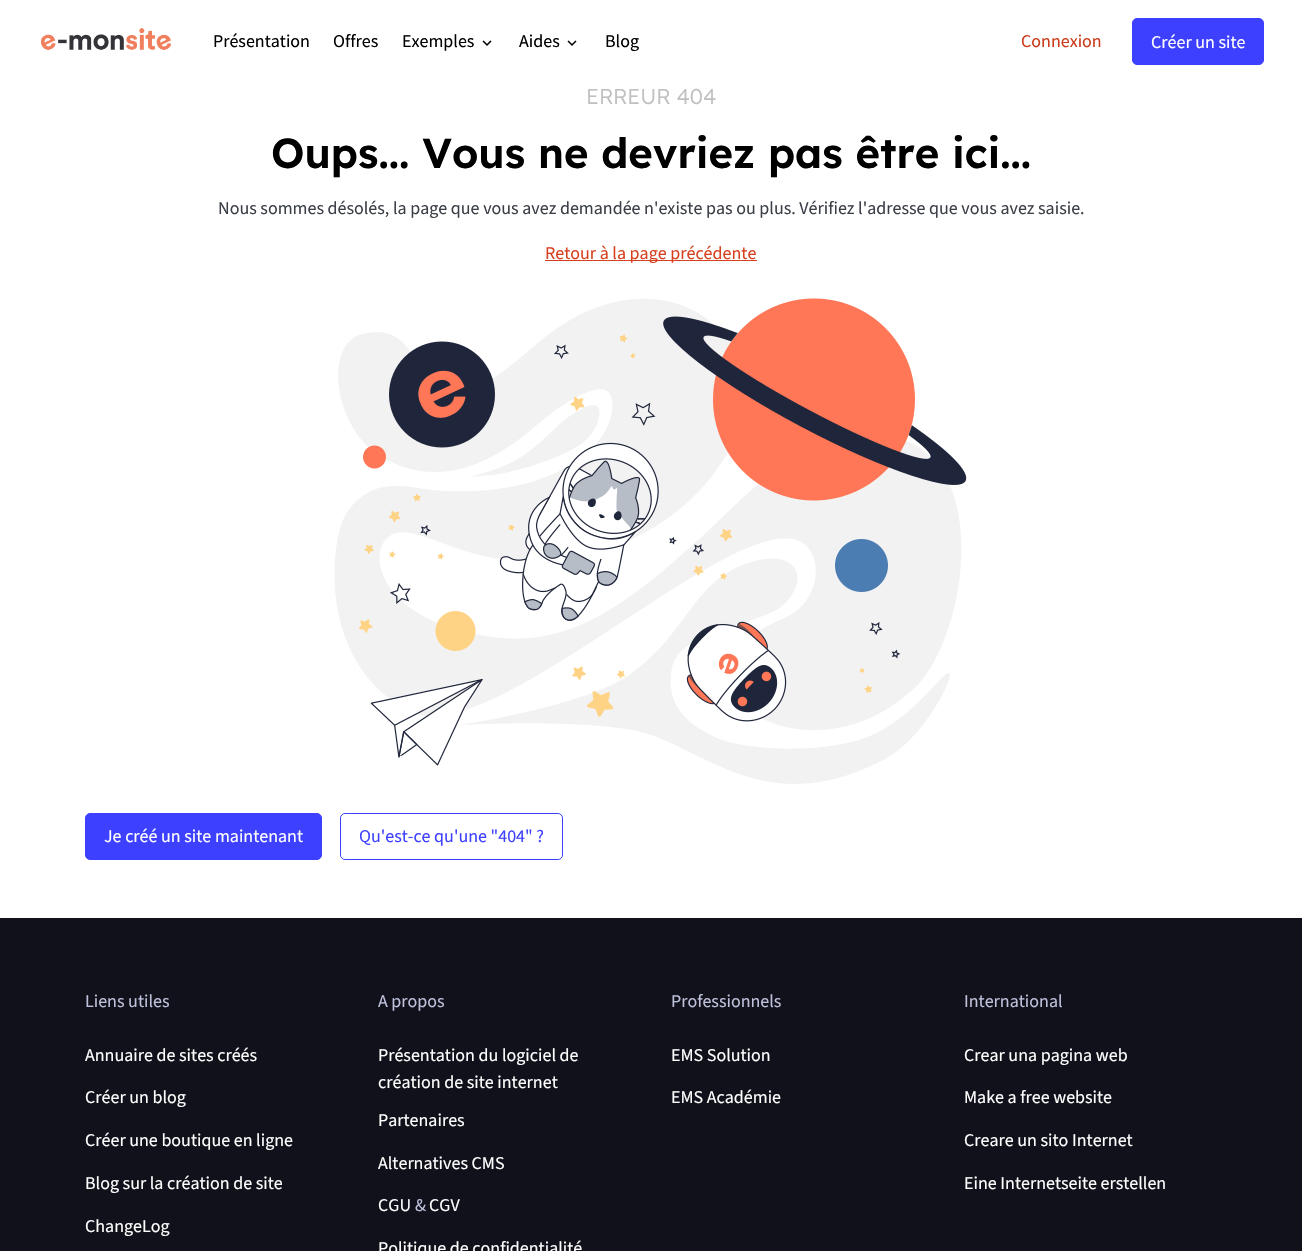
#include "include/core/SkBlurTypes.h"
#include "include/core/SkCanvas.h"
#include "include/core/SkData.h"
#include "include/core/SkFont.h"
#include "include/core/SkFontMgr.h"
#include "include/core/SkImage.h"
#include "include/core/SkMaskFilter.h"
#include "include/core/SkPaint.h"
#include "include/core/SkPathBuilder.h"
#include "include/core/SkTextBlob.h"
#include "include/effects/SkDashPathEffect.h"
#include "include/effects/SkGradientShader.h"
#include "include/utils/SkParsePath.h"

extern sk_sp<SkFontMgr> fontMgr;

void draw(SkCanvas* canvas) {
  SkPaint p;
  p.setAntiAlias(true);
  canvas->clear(SK_ColorWHITE);
  canvas->drawImageRect(SkImages::DeferredFromEncodedData(SkData::MakeFromFileName("images/1.png")), SkRect::MakeLTRB(41, 28, 171, 50), SkSamplingOptions());
  canvas->drawImageRect(SkImages::DeferredFromEncodedData(SkData::MakeFromFileName("images/2.png")), SkRect::MakeLTRB(482, 40, 492, 46), SkSamplingOptions());
  canvas->drawImageRect(SkImages::DeferredFromEncodedData(SkData::MakeFromFileName("images/2.png")), SkRect::MakeLTRB(567, 40, 577, 46), SkSamplingOptions());
  p.setColor(SkColorSetRGB(61, 64, 255));
  canvas->drawRoundRect(SkRect::MakeLTRB(1132.5f, 18.5f, 1263.5f, 64.5f), 4.5f, 4.5f, p);
  p.setStyle(SkPaint::kStroke_Style);
  p.setStrokeWidth(1);
  canvas->drawRoundRect(SkRect::MakeLTRB(1132.5f, 18.5f, 1263.5f, 64.5f), 4.5f, 4.5f, p);
  p.setStyle(SkPaint::kFill_Style);
  p.setColor(SkColorSetRGB(215, 64, 30));
  canvas->drawRect(SkRect::MakeLTRB(545, 260, 757, 261), p);
  canvas->drawImageRect(SkImages::DeferredFromEncodedData(SkData::MakeFromFileName("images/3.png")), SkRect::MakeLTRB(334, 298, 967, 784), SkSamplingOptions());
  p.setColor(SkColorSetRGB(61, 64, 255));
  canvas->drawRoundRect(SkRect::MakeLTRB(85.5f, 813.5f, 321.5f, 859.5f), 4.5f, 4.5f, p);
  p.setStyle(SkPaint::kStroke_Style);
  canvas->drawRoundRect(SkRect::MakeLTRB(85.5f, 813.5f, 321.5f, 859.5f), 4.5f, 4.5f, p);
  canvas->drawRoundRect(SkRect::MakeLTRB(340.5f, 813.5f, 562.5f, 859.5f), 4.5f, 4.5f, p);
  p.setStyle(SkPaint::kFill_Style);
  p.setColor(SkColorSetRGB(16, 17, 26));
  canvas->drawRect(SkRect::MakeLTRB(0, 918, 1302, 1251), p);
  SkFont font1(fontMgr->matchFamilyStyle("Source Sans Pro", SkFontStyle::Normal()), 18);
  font1.setSubpixel(true);
  p.setColor(SK_ColorBLACK);
  canvas->drawString("Présentation", 213, 47, font1, p);
  canvas->drawString("Offres", 333, 47, font1, p);
  canvas->drawString("Exemples", 402, 47, font1, p);
  canvas->drawString("Aides", 519, 47, font1, p);
  canvas->drawString("Blog", 605, 47, font1, p);
  p.setColor(SkColorSetRGB(203, 58, 25));
  canvas->drawString("Connexion", 1021, 47, font1, p);
  p.setColor(SK_ColorWHITE);
  canvas->drawString("Créer un site", 1151, 48, font1, p);
  SkFont font2(fontMgr->matchFamilyStyle("Lexend", SkFontStyle(300, SkFontStyle::kNormal_Width, SkFontStyle::kUpright_Slant)), 21.5f);
  font2.setSubpixel(true);
  p.setColor(SkColorSetRGB(192, 192, 192));
  canvas->drawString("ERREUR 404", 586, 104, font2, p);
  SkFont font3(fontMgr->matchFamilyStyle("Lexend", SkFontStyle(600, SkFontStyle::kNormal_Width, SkFontStyle::kUpright_Slant)), 41.75f);
  font3.setSubpixel(true);
  p.setColor(SK_ColorBLACK);
  canvas->drawString("Oups... Vous ne devriez pas être ici...", 271, 168, font3, p);
  SkFont font4(fontMgr->matchFamilyStyle("Source Sans 3", SkFontStyle::Normal()), 18);
  font4.setSubpixel(true);
  p.setColor(SkColorSetRGB(59, 63, 71));
  canvas->drawString("Nous sommes désolés, la page que vous avez demandée n'existe pas ou plus. Vérifiez l'adresse que vous avez saisie.", 218, 214, font4, p);
  p.setColor(SkColorSetRGB(215, 64, 30));
  canvas->drawString("Retour à la page précédente", 545, 259, font4, p);
  p.setColor(SK_ColorWHITE);
  canvas->drawString("Je créé un site maintenant", 104, 842, font4, p);
  p.setColor(SkColorSetRGB(61, 64, 255));
  canvas->drawString("Qu'est-ce qu'une \"404\" ?", 359, 842, font4, p);
  p.setColor(SkColorSetRGB(190, 193, 219));
  canvas->drawString("Liens utiles", 85, 1007, font4, p);
  p.setColor(SK_ColorWHITE);
  canvas->drawString("Annuaire de sites créés", 85, 1061, font4, p);
  canvas->drawString("Créer un blog", 85, 1103, font4, p);
  canvas->drawString("Créer une boutique en ligne", 85, 1146, font4, p);
  canvas->drawString("Blog sur la création de site", 85, 1189, font4, p);
  canvas->drawString("ChangeLog", 85, 1232, font4, p);
  p.setColor(SkColorSetRGB(190, 193, 219));
  canvas->drawString("A propos", 378, 1007, font4, p);
  p.setColor(SK_ColorWHITE);
  canvas->drawString("Présentation du logiciel de", 378, 1061, font4, p);
  canvas->drawString("création de site internet", 378, 1088, font4, p);
  canvas->drawString("Partenaires", 378, 1126, font4, p);
  canvas->drawString("Alternatives CMS", 378, 1169, font4, p);
  canvas->drawString("CGU", 378, 1211, font4, p);
  p.setColor(SkColorSetRGB(190, 193, 219));
  canvas->drawString("&", 415, 1211, font4, p);
  p.setColor(SK_ColorWHITE);
  canvas->drawString("CGV", 429, 1211, font4, p);
  canvas->drawString("Politique de confidentialité", 378, 1254, font4, p);
  p.setColor(SkColorSetRGB(190, 193, 219));
  canvas->drawString("Professionnels", 671, 1007, font4, p);
  p.setColor(SK_ColorWHITE);
  canvas->drawString("EMS Solution", 671, 1061, font4, p);
  canvas->drawString("EMS Académie", 671, 1103, font4, p);
  p.setColor(SkColorSetRGB(190, 193, 219));
  canvas->drawString("International", 964, 1007, font4, p);
  p.setColor(SK_ColorWHITE);
  canvas->drawString("Crear una pagina web", 964, 1061, font4, p);
  canvas->drawString("Make a free website", 964, 1103, font4, p);
  canvas->drawString("Creare un sito Internet", 964, 1146, font4, p);
  canvas->drawString("Eine Internetseite erstellen", 964, 1189, font4, p);
}
